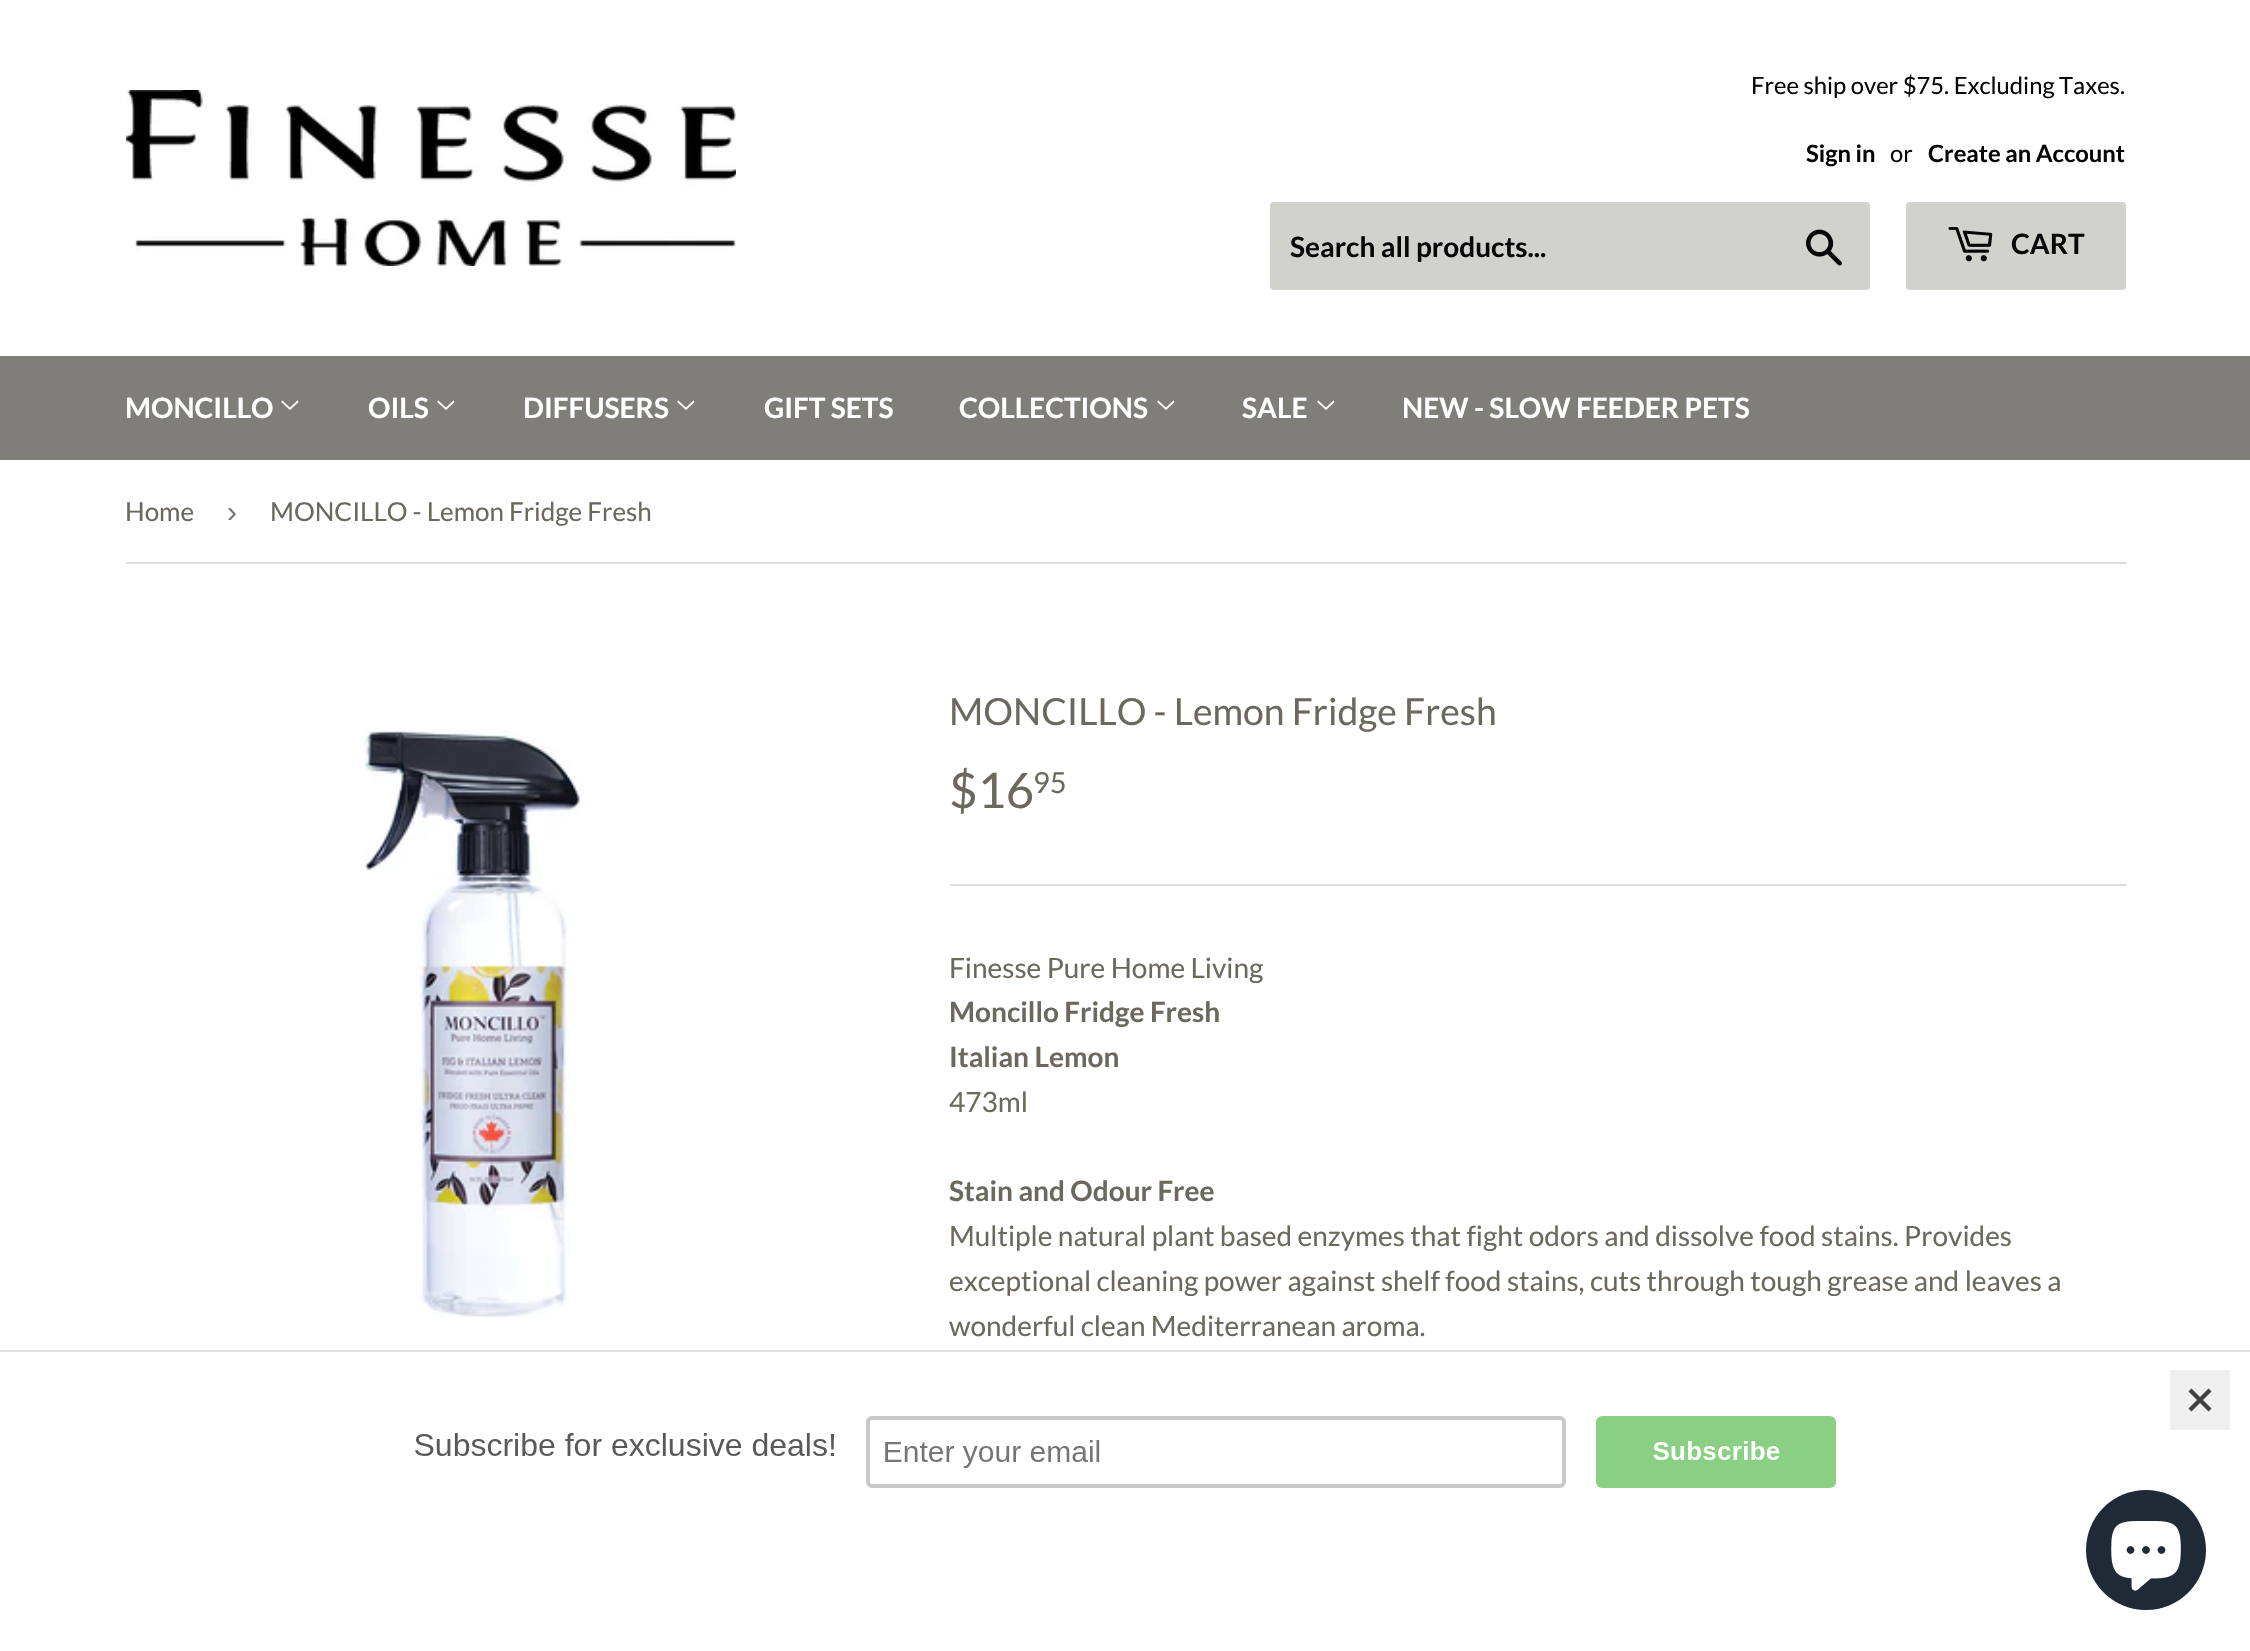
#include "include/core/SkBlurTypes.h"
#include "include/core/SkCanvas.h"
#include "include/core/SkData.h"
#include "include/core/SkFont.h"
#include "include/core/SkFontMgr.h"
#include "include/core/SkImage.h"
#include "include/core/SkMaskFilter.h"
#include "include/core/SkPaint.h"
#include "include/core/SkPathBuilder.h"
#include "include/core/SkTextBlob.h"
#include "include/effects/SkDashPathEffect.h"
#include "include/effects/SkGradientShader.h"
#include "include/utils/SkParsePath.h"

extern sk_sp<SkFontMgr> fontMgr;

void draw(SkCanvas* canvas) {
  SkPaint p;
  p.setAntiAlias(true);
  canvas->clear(SK_ColorWHITE);
  canvas->drawImageRect(SkImages::DeferredFromEncodedData(SkData::MakeFromFileName("images/1.png")), SkRect::MakeLTRB(126, 90, 736, 266), SkSamplingOptions());
  p.setColor(SkColorSetRGB(210, 210, 205));
  canvas->drawRoundRect(SkRect::MakeLTRB(1270, 202, 1870, 290), 4, 4, p);
  canvas->drawImageRect(SkImages::DeferredFromEncodedData(SkData::MakeFromFileName("images/2.png")), SkRect::MakeLTRB(1806, 229, 1842, 266), SkSamplingOptions());
  canvas->drawRoundRect(SkRect::MakeLTRB(1906, 202, 2126, 290), 4, 4, p);
  canvas->drawImageRect(SkImages::DeferredFromEncodedData(SkData::MakeFromFileName("images/3.png")), SkRect::MakeLTRB(1948, 227, 1993, 262), SkSamplingOptions());
  p.setColor(SkColorSetRGB(128, 126, 121));
  canvas->drawRect(SkRect::MakeLTRB(0, 356, 2250, 460), p);
  canvas->drawImageRect(SkImages::DeferredFromEncodedData(SkData::MakeFromFileName("images/4.png")), SkRect::MakeLTRB(281, 400, 299, 410), SkSamplingOptions());
  canvas->drawImageRect(SkImages::DeferredFromEncodedData(SkData::MakeFromFileName("images/4.png")), SkRect::MakeLTRB(437, 400, 455, 410), SkSamplingOptions());
  canvas->drawImageRect(SkImages::DeferredFromEncodedData(SkData::MakeFromFileName("images/4.png")), SkRect::MakeLTRB(677, 400, 695, 410), SkSamplingOptions());
  canvas->drawImageRect(SkImages::DeferredFromEncodedData(SkData::MakeFromFileName("images/4.png")), SkRect::MakeLTRB(1157, 400, 1175, 410), SkSamplingOptions());
  canvas->drawImageRect(SkImages::DeferredFromEncodedData(SkData::MakeFromFileName("images/4.png")), SkRect::MakeLTRB(1317, 400, 1335, 410), SkSamplingOptions());
  p.setColor(SkColorSetRGB(222, 222, 222));
  canvas->drawRect(SkRect::MakeLTRB(126, 562, 2126, 564), p);
  canvas->drawImageRect(SkImages::DeferredFromEncodedData(SkData::MakeFromFileName("images/5.png")), SkRect::MakeLTRB(364, 730, 582, 1318), SkSamplingOptions());
  canvas->drawRect(SkRect::MakeLTRB(950, 884, 2126, 886), p);
  p.setColor(SkColorSetRGB(224, 224, 224));
  canvas->drawRect(SkRect::MakeLTRB(0, 1350, 2250, 1352), p);
  canvas->drawImageRect(SkImages::DeferredFromEncodedData(SkData::MakeFromFileName("images/6.png")), SkRect::MakeLTRB(415, 1416, 1836, 1488), SkSamplingOptions());
  p.setColor(SkColorSetRGB(239, 239, 239));
  canvas->drawRect(SkRect::MakeLTRB(2170, 1370, 2230, 1430), p);
  p.setColor(SkColorSetRGB(65, 65, 65));
  canvas->drawPath(SkPathBuilder().moveTo(2208.5f, 1388.5f).lineTo(2211.5f, 1391.5f).lineTo(2191.5f, 1411.5f).lineTo(2188.5f, 1408.5f).close().detach(), p);
  canvas->drawPath(SkPathBuilder().moveTo(2188.5f, 1391.5f).lineTo(2191.5f, 1388.5f).lineTo(2211.5f, 1408.5f).lineTo(2208.5f, 1411.5f).close().detach(), p);
  p.setColor(SkColorSetRGB(32, 42, 54));
  canvas->drawCircle(2146, 1550, 60, p);
  canvas->drawImageRect(SkImages::DeferredFromEncodedData(SkData::MakeFromFileName("images/7.png")), SkRect::MakeLTRB(2111, 1521, 2181, 1591), SkSamplingOptions());
  SkFont font1(fontMgr->matchFamilyStyle("Lato", SkFontStyle::Normal()), 23.75f);
  font1.setSubpixel(true);
  p.setColor(SkColorSetRGB(6, 6, 6));
  canvas->drawString("Free ship over $75. Excluding Taxes.", 1751, 94, font1, p);
  SkFont font2(fontMgr->matchFamilyStyle("Lato", SkFontStyle::Bold()), 23.75f);
  font2.setSubpixel(true);
  canvas->drawString("Sign in", 1806, 162, font2, p);
  canvas->drawString("or", 1890, 162, font1, p);
  canvas->drawString("Create an Account", 1928, 162, font2, p);
  SkFont font3(fontMgr->matchFamilyStyle("Lato", SkFontStyle::Bold()), 28);
  font3.setSubpixel(true);
  canvas->drawString("Search all products...", 1290, 257, font3, p);
  canvas->drawString("CART", 2011, 254, font3, p);
  p.setColor(SK_ColorWHITE);
  canvas->drawString("MONCILLO", 125, 418, font3, p);
  canvas->drawString("OILS", 368, 418, font3, p);
  canvas->drawString("DIFFUSERS", 523, 418, font3, p);
  canvas->drawString("GIFT SETS", 764, 418, font3, p);
  canvas->drawString("COLLECTIONS", 959, 418, font3, p);
  canvas->drawString("SALE", 1242, 418, font3, p);
  canvas->drawString("NEW - SLOW FEEDER PETS", 1402, 418, font3, p);
  SkFont font4(fontMgr->matchFamilyStyle("Lato", SkFontStyle::Normal()), 26);
  font4.setSubpixel(true);
  p.setColor(SkColorSetRGB(108, 104, 93));
  canvas->drawString("Home", 125, 521, font4, p);
  SkFont font5(fontMgr->matchFamilyStyle("Liberation Sans", SkFontStyle::Normal()), 30);
  font5.setSubpixel(true);
  p.setColor(SkColorSetRGB(118, 118, 118));
  canvas->drawString("›", 227, 522, font5, p);
  p.setColor(SkColorSetRGB(108, 104, 93));
  canvas->drawString("MONCILLO - Lemon Fridge Fresh", 270, 521, font4, p);
  SkFont font6(fontMgr->matchFamilyStyle("Lato", SkFontStyle::Normal()), 37.3f);
  font6.setSubpixel(true);
  canvas->drawString("MONCILLO - Lemon Fridge Fresh", 949, 725, font6, p);
  SkFont font7(fontMgr->matchFamilyStyle("Lato", SkFontStyle::Normal()), 49);
  font7.setSubpixel(true);
  canvas->drawString("$16", 949, 808, font7, p);
  SkFont font8(fontMgr->matchFamilyStyle("Lato", SkFontStyle::Normal()), 29);
  font8.setSubpixel(true);
  canvas->drawString("95", 1033, 793, font8, p);
  SkFont font9(fontMgr->matchFamilyStyle("Lato", SkFontStyle::Normal()), 28);
  font9.setSubpixel(true);
  canvas->drawString("Finesse Pure Home Living", 949, 978, font9, p);
  canvas->drawString("Moncillo Fridge Fresh", 949, 1022, font3, p);
  canvas->drawString("Italian Lemon", 949, 1067, font3, p);
  canvas->drawString("473ml", 949, 1112, font9, p);
  canvas->drawString("Stain and Odour Free", 949, 1201, font3, p);
  canvas->drawString("Multiple natural plant based enzymes that fight odors and dissolve food stains. Provides", 949, 1246, font9, p);
  canvas->drawString("exceptional cleaning power against shelf food stains, cuts through tough grease and leaves a", 949, 1291, font9, p);
  canvas->drawString("wonderful clean Mediterranean aroma.", 949, 1336, font9, p);
}
